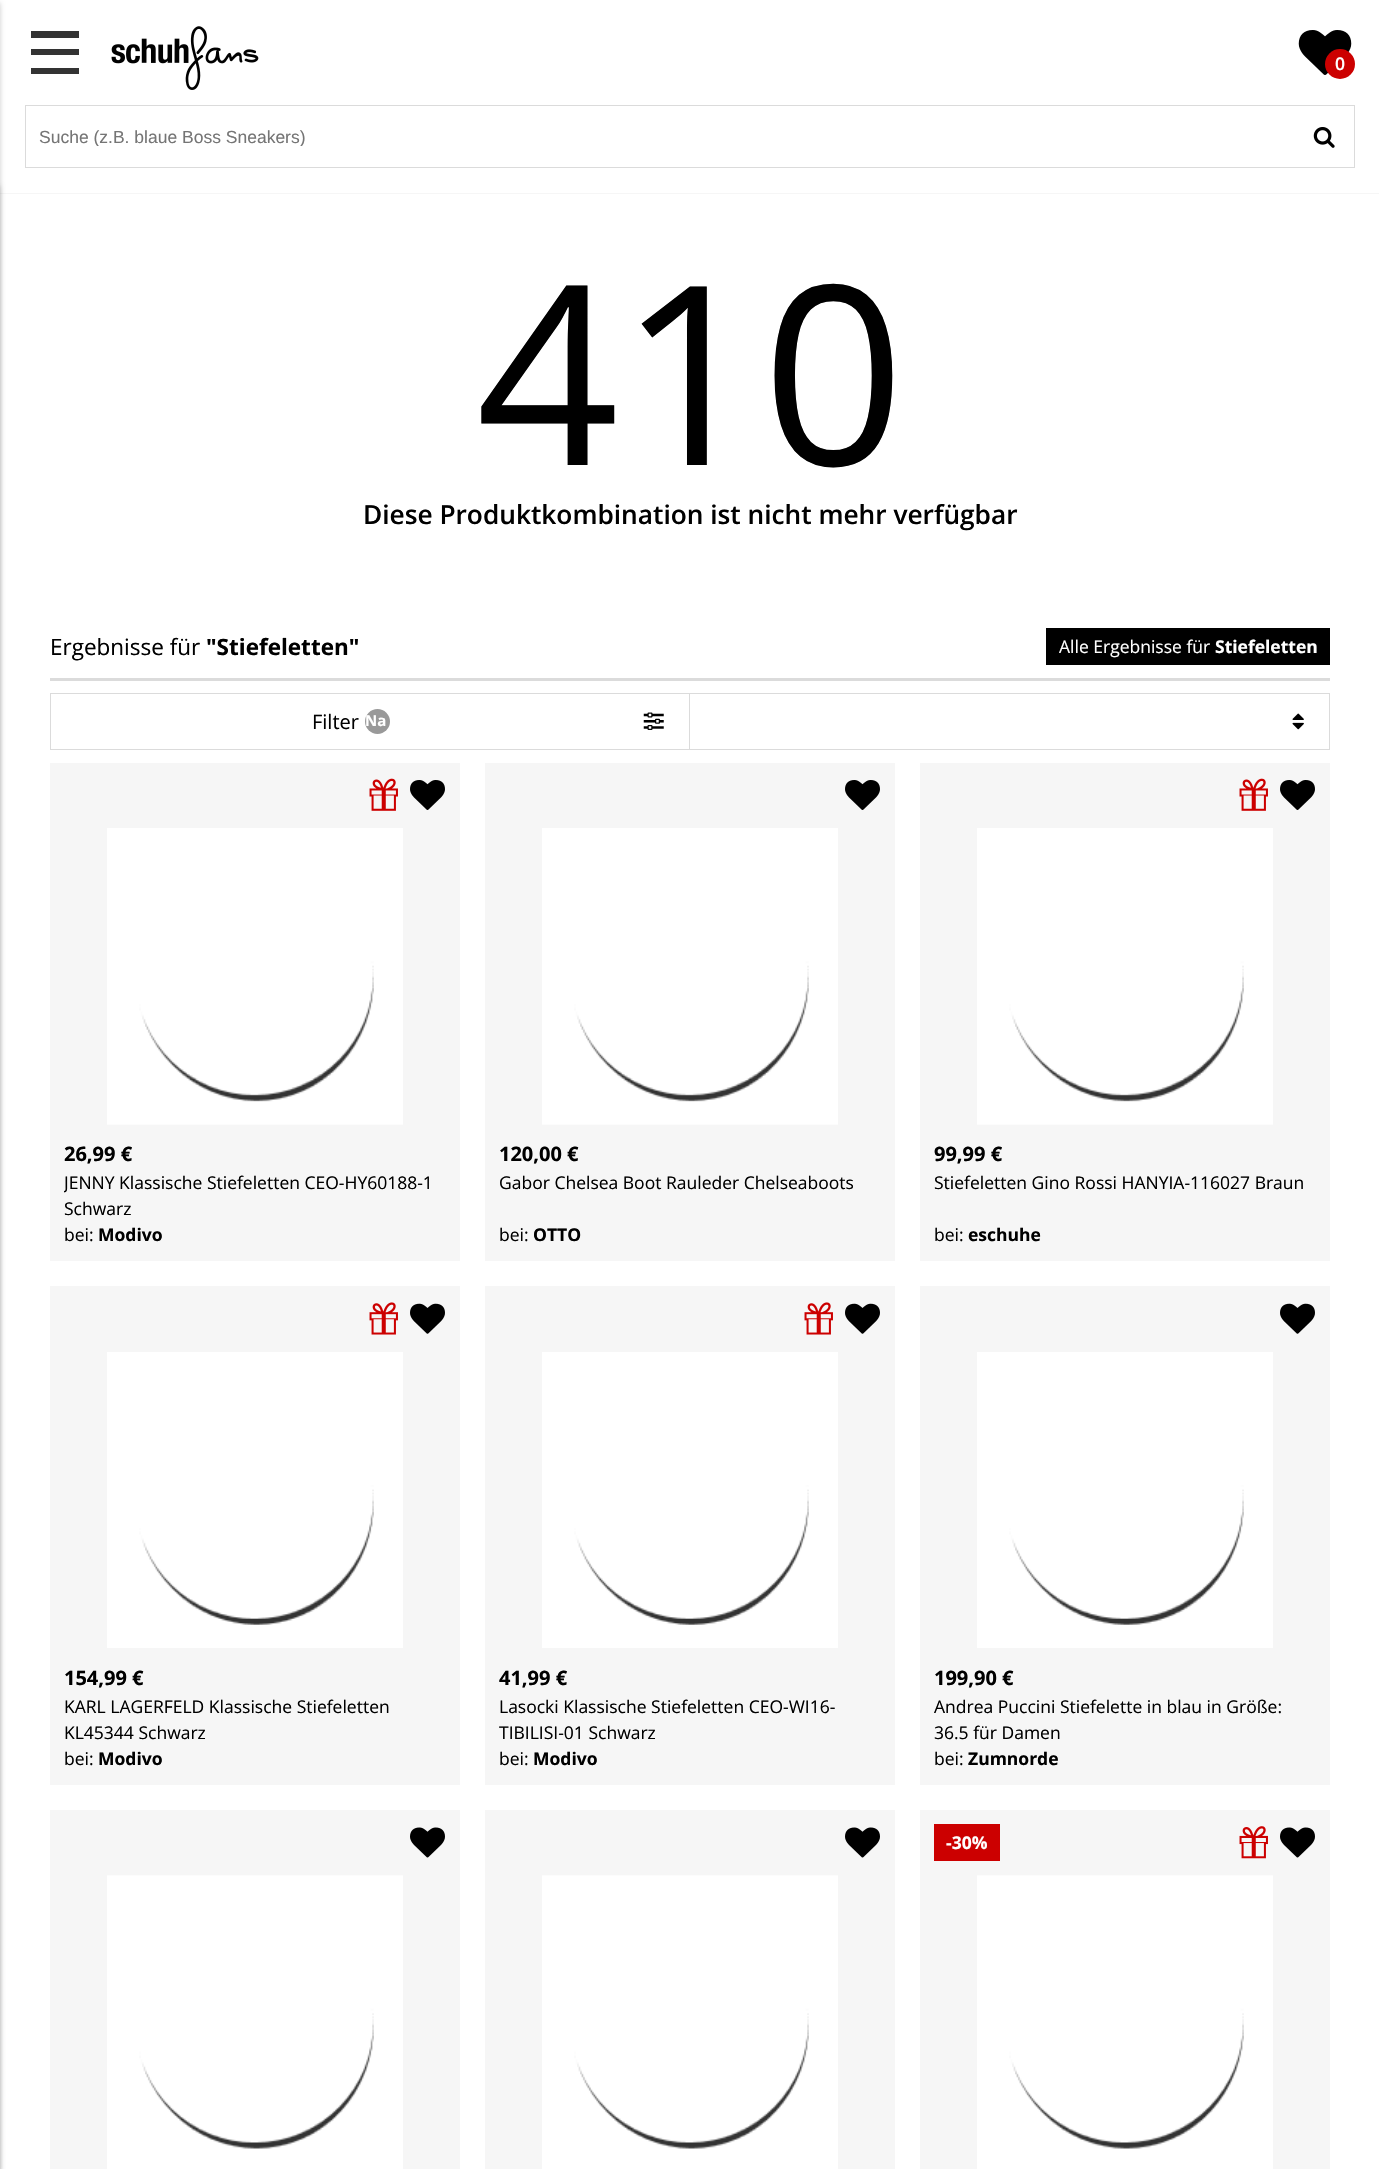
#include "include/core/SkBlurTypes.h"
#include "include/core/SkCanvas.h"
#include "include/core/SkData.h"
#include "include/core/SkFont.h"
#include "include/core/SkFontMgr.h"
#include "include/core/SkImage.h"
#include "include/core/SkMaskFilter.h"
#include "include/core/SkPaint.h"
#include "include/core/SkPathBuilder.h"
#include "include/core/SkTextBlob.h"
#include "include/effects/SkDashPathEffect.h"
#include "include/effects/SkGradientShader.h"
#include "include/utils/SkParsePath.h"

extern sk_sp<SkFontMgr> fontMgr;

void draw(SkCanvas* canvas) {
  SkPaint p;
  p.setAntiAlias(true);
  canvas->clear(SK_ColorWHITE);
  p.setColor(SkColorSetRGB(246, 246, 246));
  canvas->drawRect(SkRect::MakeLTRB(0, 193, 1379, 194), p);
  p.setColor(SkColorSetARGB(51, 0, 0, 0));
  p.setMaskFilter(SkMaskFilter::MakeBlur(kNormal_SkBlurStyle, 2.5f));
  canvas->drawRect(SkRect::MakeLTRB(-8, 3, 0, 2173), p);
  p.setMaskFilter(nullptr);
  p.setColor(SkColorSetRGB(51, 51, 51));
  canvas->drawRect(SkRect::MakeLTRB(31, 31, 79, 38), p);
  canvas->drawRect(SkRect::MakeLTRB(31, 49, 79, 55), p);
  canvas->drawRect(SkRect::MakeLTRB(31, 68, 79, 74), p);
  canvas->drawImageRect(SkImages::DeferredFromEncodedData(SkData::MakeFromFileName("images/1.png")), SkRect::MakeLTRB(111, 26, 259, 90), SkSamplingOptions());
  canvas->drawImageRect(SkImages::DeferredFromEncodedData(SkData::MakeFromFileName("images/2.png")), SkRect::MakeLTRB(1298, 30, 1352, 75), SkSamplingOptions());
  p.setColor(SkColorSetRGB(204, 0, 0));
  canvas->drawCircle(1340, 64, 15, p);
  p.setStyle(SkPaint::kStroke_Style);
  p.setStrokeWidth(1);
  p.setColor(SkColorSetRGB(219, 219, 219));
  canvas->drawRect(SkRect::MakeLTRB(25.5f, 105.5f, 1354.5f, 167.5f), p);
  canvas->drawImageRect(SkImages::DeferredFromEncodedData(SkData::MakeFromFileName("images/3.png")), SkRect::MakeLTRB(1313, 127, 1335, 148), SkSamplingOptions());
  p.setStyle(SkPaint::kFill_Style);
  p.setColor(SkColorSetARGB(51, 0, 0, 0));
  p.setMaskFilter(SkMaskFilter::MakeBlur(kNormal_SkBlurStyle, 2.5f));
  canvas->drawRect(SkRect::MakeLTRB(-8, 186, 0, 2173), p);
  p.setMaskFilter(nullptr);
  p.setColor(SkColorSetRGB(219, 219, 219));
  canvas->drawRect(SkRect::MakeLTRB(50, 678, 1330, 681), p);
  p.setColor(SK_ColorBLACK);
  canvas->drawRect(SkRect::MakeLTRB(1046, 628, 1330, 665), p);
  p.setStyle(SkPaint::kStroke_Style);
  p.setColor(SkColorSetRGB(219, 219, 219));
  canvas->drawRect(SkRect::MakeLTRB(50.5f, 693.5f, 1329.5f, 749.5f), p);
  p.setStyle(SkPaint::kFill_Style);
  canvas->drawRect(SkRect::MakeLTRB(689, 694, 690, 749), p);
  p.setColor(SkColorSetRGB(153, 153, 153));
  canvas->drawCircle(377.5f, 721.5f, 12.5f, p);
  canvas->drawImageRect(SkImages::DeferredFromEncodedData(SkData::MakeFromFileName("images/4.png")), SkRect::MakeLTRB(643, 712, 664, 730), SkSamplingOptions());
  canvas->drawImageRect(SkImages::DeferredFromEncodedData(SkData::MakeFromFileName("images/5.png")), SkRect::MakeLTRB(1292, 713, 1304, 730), SkSamplingOptions());
  p.setColor(SkColorSetRGB(246, 246, 246));
  canvas->drawRect(SkRect::MakeLTRB(50, 763, 460, 1261), p);
  canvas->drawImageRect(SkImages::DeferredFromEncodedData(SkData::MakeFromFileName("images/6.png")), SkRect::MakeLTRB(369, 778, 398, 811), SkSamplingOptions());
  canvas->drawImageRect(SkImages::DeferredFromEncodedData(SkData::MakeFromFileName("images/7.png")), SkRect::MakeLTRB(410, 780, 445, 810), SkSamplingOptions());
  canvas->drawImageRect(SkImages::DeferredFromEncodedData(SkData::MakeFromFileName("images/8.png")), SkRect::MakeLTRB(107, 828, 403, 1125), SkSamplingOptions());
  canvas->drawRect(SkRect::MakeLTRB(485, 763, 895, 1261), p);
  canvas->drawImageRect(SkImages::DeferredFromEncodedData(SkData::MakeFromFileName("images/7.png")), SkRect::MakeLTRB(845, 780, 880, 810), SkSamplingOptions());
  canvas->drawImageRect(SkImages::DeferredFromEncodedData(SkData::MakeFromFileName("images/8.png")), SkRect::MakeLTRB(542, 828, 838, 1125), SkSamplingOptions());
  canvas->drawRect(SkRect::MakeLTRB(920, 763, 1330, 1261), p);
  canvas->drawImageRect(SkImages::DeferredFromEncodedData(SkData::MakeFromFileName("images/6.png")), SkRect::MakeLTRB(1239, 778, 1268, 811), SkSamplingOptions());
  canvas->drawImageRect(SkImages::DeferredFromEncodedData(SkData::MakeFromFileName("images/7.png")), SkRect::MakeLTRB(1280, 780, 1315, 810), SkSamplingOptions());
  canvas->drawImageRect(SkImages::DeferredFromEncodedData(SkData::MakeFromFileName("images/8.png")), SkRect::MakeLTRB(977, 828, 1273, 1125), SkSamplingOptions());
  canvas->drawRect(SkRect::MakeLTRB(50, 1286, 460, 1785), p);
  canvas->drawImageRect(SkImages::DeferredFromEncodedData(SkData::MakeFromFileName("images/9.png")), SkRect::MakeLTRB(369, 1302, 398, 1335), SkSamplingOptions());
  canvas->drawImageRect(SkImages::DeferredFromEncodedData(SkData::MakeFromFileName("images/10.png")), SkRect::MakeLTRB(410, 1303, 445, 1334), SkSamplingOptions());
  canvas->drawImageRect(SkImages::DeferredFromEncodedData(SkData::MakeFromFileName("images/11.png")), SkRect::MakeLTRB(107, 1352, 403, 1648), SkSamplingOptions());
  canvas->drawRect(SkRect::MakeLTRB(485, 1286, 895, 1785), p);
  canvas->drawImageRect(SkImages::DeferredFromEncodedData(SkData::MakeFromFileName("images/9.png")), SkRect::MakeLTRB(804, 1302, 833, 1335), SkSamplingOptions());
  canvas->drawImageRect(SkImages::DeferredFromEncodedData(SkData::MakeFromFileName("images/10.png")), SkRect::MakeLTRB(845, 1303, 880, 1334), SkSamplingOptions());
  canvas->drawImageRect(SkImages::DeferredFromEncodedData(SkData::MakeFromFileName("images/11.png")), SkRect::MakeLTRB(542, 1352, 838, 1648), SkSamplingOptions());
  canvas->drawRect(SkRect::MakeLTRB(920, 1286, 1330, 1785), p);
  canvas->drawImageRect(SkImages::DeferredFromEncodedData(SkData::MakeFromFileName("images/10.png")), SkRect::MakeLTRB(1280, 1303, 1315, 1334), SkSamplingOptions());
  canvas->drawImageRect(SkImages::DeferredFromEncodedData(SkData::MakeFromFileName("images/11.png")), SkRect::MakeLTRB(977, 1352, 1273, 1648), SkSamplingOptions());
  canvas->drawRect(SkRect::MakeLTRB(50, 1810, 460, 2169), p);
  canvas->drawImageRect(SkImages::DeferredFromEncodedData(SkData::MakeFromFileName("images/12.png")), SkRect::MakeLTRB(410, 1827, 445, 1858), SkSamplingOptions());
  canvas->drawImageRect(SkImages::DeferredFromEncodedData(SkData::MakeFromFileName("images/13.png")), SkRect::MakeLTRB(107, 1875, 403, 2169), SkSamplingOptions());
  canvas->drawRect(SkRect::MakeLTRB(485, 1810, 895, 2169), p);
  canvas->drawImageRect(SkImages::DeferredFromEncodedData(SkData::MakeFromFileName("images/12.png")), SkRect::MakeLTRB(845, 1827, 880, 1858), SkSamplingOptions());
  canvas->drawImageRect(SkImages::DeferredFromEncodedData(SkData::MakeFromFileName("images/13.png")), SkRect::MakeLTRB(542, 1875, 838, 2169), SkSamplingOptions());
  canvas->drawRect(SkRect::MakeLTRB(920, 1810, 1330, 2169), p);
  p.setColor(SkColorSetRGB(204, 0, 0));
  canvas->drawRect(SkRect::MakeLTRB(934, 1824, 1000, 1861), p);
  canvas->drawImageRect(SkImages::DeferredFromEncodedData(SkData::MakeFromFileName("images/14.png")), SkRect::MakeLTRB(1239, 1826, 1268, 1859), SkSamplingOptions());
  canvas->drawImageRect(SkImages::DeferredFromEncodedData(SkData::MakeFromFileName("images/12.png")), SkRect::MakeLTRB(1280, 1827, 1315, 1858), SkSamplingOptions());
  canvas->drawImageRect(SkImages::DeferredFromEncodedData(SkData::MakeFromFileName("images/13.png")), SkRect::MakeLTRB(977, 1875, 1273, 2169), SkSamplingOptions());
  SkFont font1(fontMgr->matchFamilyStyle("Open Sans", SkFontStyle(600, SkFontStyle::kNormal_Width, SkFontStyle::kUpright_Slant)), 17.5f);
  font1.setSubpixel(true);
  p.setColor(SK_ColorWHITE);
  canvas->drawString("0", 1335, 70, font1, p);
  canvas->save();
  canvas->clipRect(SkRect::MakeLTRB(39, 126, 1341, 146));
  SkFont font2(fontMgr->matchFamilyStyle("Liberation Sans", SkFontStyle::Normal()), 17.5f);
  font2.setSubpixel(true);
  p.setColor(SkColorSetRGB(117, 117, 117));
  canvas->drawString("Suche (z.B. blaue Boss Sneakers)", 39, 143, font2, p);
  canvas->restore();
  SkFont font3(fontMgr->matchFamilyStyle("Open Sans", SkFontStyle::Normal()), 250);
  font3.setSubpixel(true);
  p.setColor(SK_ColorBLACK);
  canvas->drawString("410", 476, 465, font3, p);
  SkFont font4(fontMgr->matchFamilyStyle("Open Sans", SkFontStyle(600, SkFontStyle::kNormal_Width, SkFontStyle::kUpright_Slant)), 26.25f);
  font4.setSubpixel(true);
  canvas->drawString("Diese Produktkombination ist nicht mehr verfügbar", 363, 524, font4, p);
  SkFont font5(fontMgr->matchFamilyStyle("Open Sans", SkFontStyle::Normal()), 22.5f);
  font5.setSubpixel(true);
  canvas->drawString("Ergebnisse für", 50, 655, font5, p);
  SkFont font6(fontMgr->matchFamilyStyle("Open Sans", SkFontStyle::Bold()), 22.5f);
  font6.setSubpixel(true);
  canvas->drawString("\"Stiefeletten\"", 206, 655, font6, p);
  SkFont font7(fontMgr->matchFamilyStyle("Open Sans", SkFontStyle::Normal()), 17.5f);
  font7.setSubpixel(true);
  p.setColor(SK_ColorWHITE);
  canvas->drawString("Alle Ergebnisse für", 1059, 653, font7, p);
  SkFont font8(fontMgr->matchFamilyStyle("Open Sans", SkFontStyle::Bold()), 17.5f);
  font8.setSubpixel(true);
  canvas->drawString("Stiefeletten", 1215, 653, font8, p);
  SkFont font9(fontMgr->matchFamilyStyle("Open Sans", SkFontStyle::Normal()), 20);
  font9.setSubpixel(true);
  p.setColor(SK_ColorBLACK);
  canvas->drawString("Filter", 312, 729, font9, p);
  SkFont font10(fontMgr->matchFamilyStyle("Open Sans", SkFontStyle::Bold()), 15);
  font10.setSubpixel(true);
  p.setColor(SK_ColorWHITE);
  canvas->drawString("Na", 365, 726, font10, p);
  SkFont font11(fontMgr->matchFamilyStyle("Open Sans", SkFontStyle::Bold()), 20);
  font11.setSubpixel(true);
  p.setColor(SK_ColorBLACK);
  canvas->drawString("26,99 €", 64, 1161, font11, p);
  canvas->save();
  canvas->clipRect(SkRect::MakeLTRB(64, 1169, 446, 1221));
  canvas->drawString("JENNY Klassische Stiefeletten CEO-HY60188-1", 64, 1189, font7, p);
  canvas->restore();
  canvas->drawString("Schwarz", 64, 1215, font7, p);
  canvas->drawString("bei:", 64, 1241, font7, p);
  canvas->drawString("Modivo", 98, 1241, font8, p);
  canvas->drawString("120,00 €", 499, 1161, font11, p);
  canvas->drawString("Gabor Chelsea Boot Rauleder Chelseaboots", 499, 1189, font7, p);
  canvas->drawString("bei:", 499, 1241, font7, p);
  canvas->drawString("OTTO", 533, 1241, font8, p);
  canvas->drawString("99,99 €", 934, 1161, font11, p);
  canvas->drawString("Stiefeletten Gino Rossi HANYIA-116027 Braun", 934, 1189, font7, p);
  canvas->drawString("bei:", 934, 1241, font7, p);
  canvas->drawString("eschuhe", 968, 1241, font8, p);
  canvas->drawString("154,99 €", 64, 1685, font11, p);
  canvas->drawString("KARL LAGERFELD Klassische Stiefeletten", 64, 1713, font7, p);
  canvas->drawString("KL45344 Schwarz", 64, 1739, font7, p);
  canvas->drawString("bei:", 64, 1765, font7, p);
  canvas->drawString("Modivo", 98, 1765, font8, p);
  canvas->drawString("41,99 €", 499, 1685, font11, p);
  canvas->drawString("Lasocki Klassische Stiefeletten CEO-WI16-", 499, 1713, font7, p);
  canvas->drawString("TIBILISI-01 Schwarz", 499, 1739, font7, p);
  canvas->drawString("bei:", 499, 1765, font7, p);
  canvas->drawString("Modivo", 533, 1765, font8, p);
  canvas->drawString("199,90 €", 934, 1685, font11, p);
  canvas->drawString("Andrea Puccini Stiefelette in blau in Größe:", 934, 1713, font7, p);
  canvas->drawString("36.5 für Damen", 934, 1739, font7, p);
  canvas->drawString("bei:", 934, 1765, font7, p);
  canvas->drawString("Zumnorde", 968, 1765, font8, p);
  p.setColor(SK_ColorWHITE);
  canvas->drawString("-30%", 946, 1849, font8, p);
}
